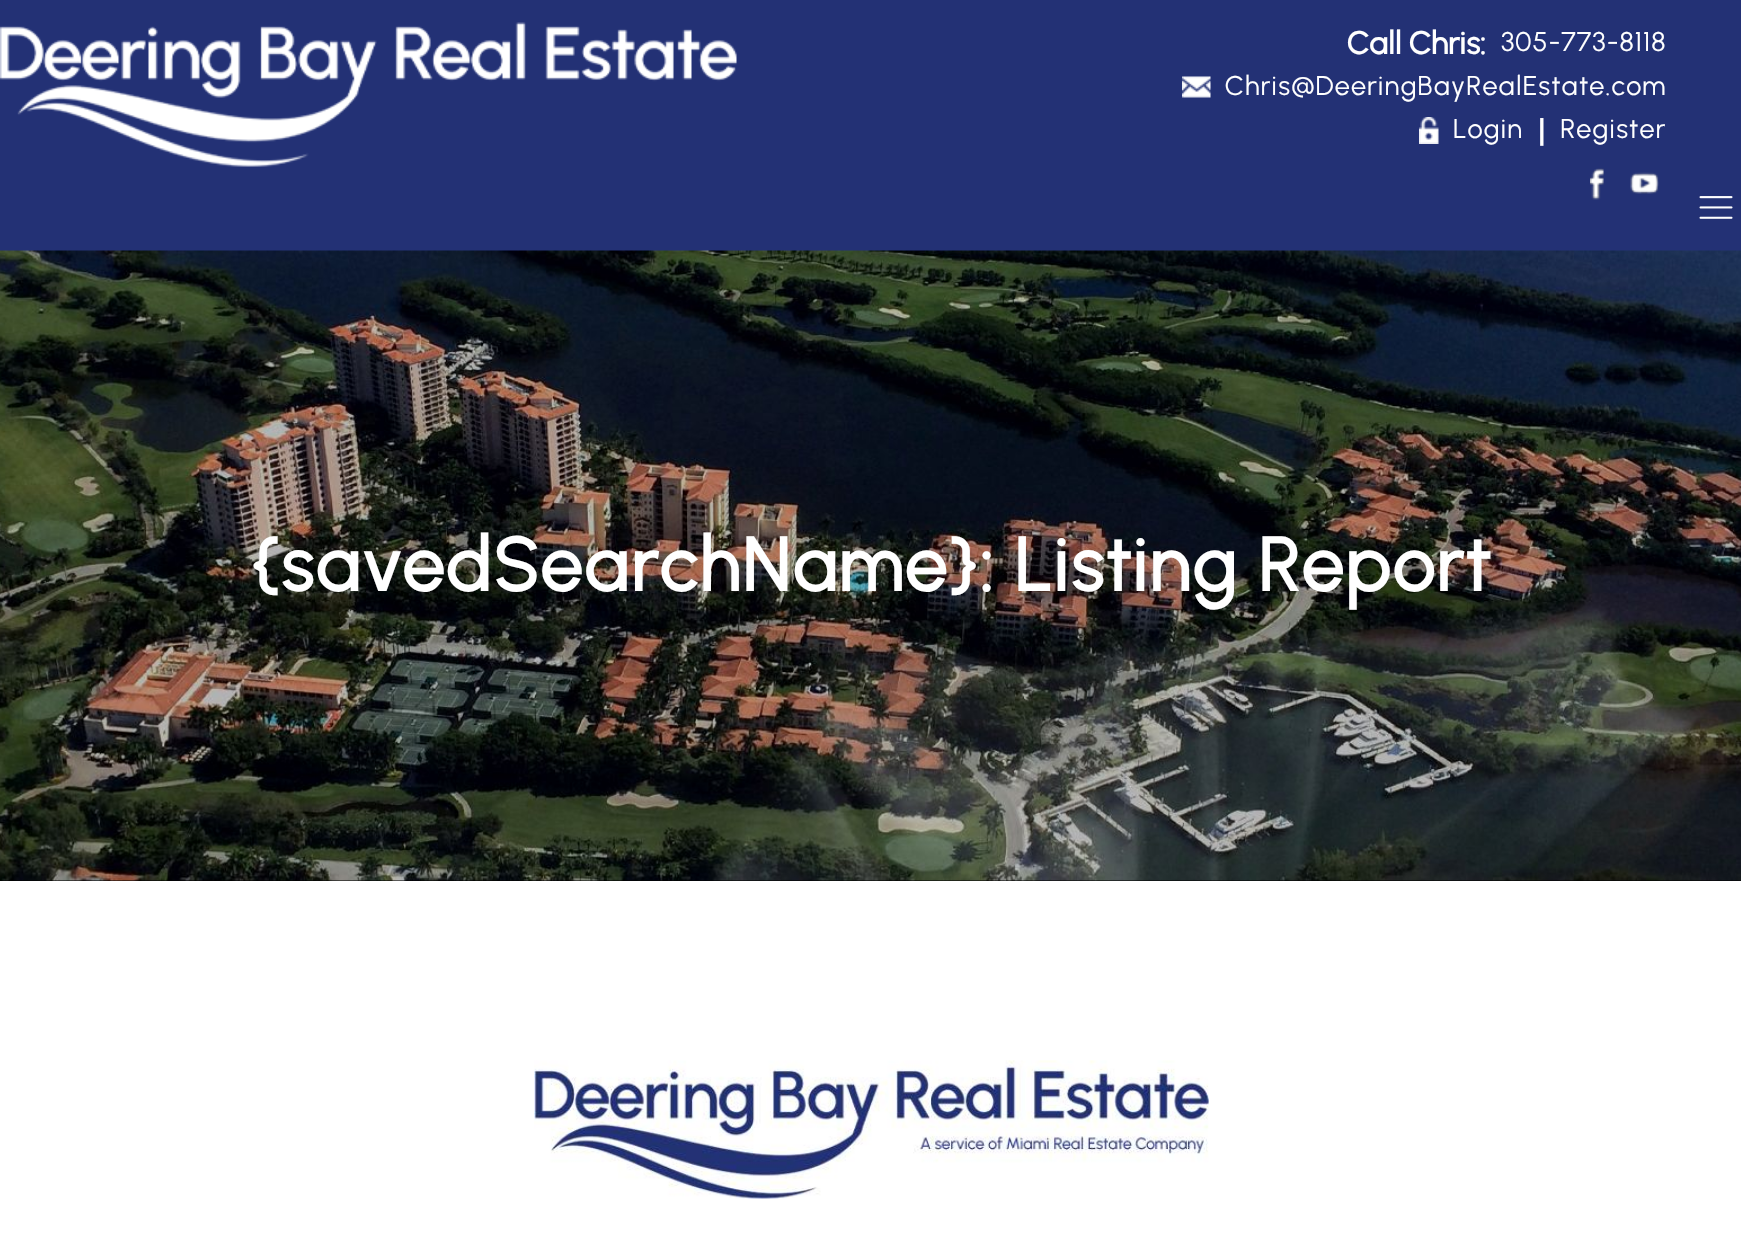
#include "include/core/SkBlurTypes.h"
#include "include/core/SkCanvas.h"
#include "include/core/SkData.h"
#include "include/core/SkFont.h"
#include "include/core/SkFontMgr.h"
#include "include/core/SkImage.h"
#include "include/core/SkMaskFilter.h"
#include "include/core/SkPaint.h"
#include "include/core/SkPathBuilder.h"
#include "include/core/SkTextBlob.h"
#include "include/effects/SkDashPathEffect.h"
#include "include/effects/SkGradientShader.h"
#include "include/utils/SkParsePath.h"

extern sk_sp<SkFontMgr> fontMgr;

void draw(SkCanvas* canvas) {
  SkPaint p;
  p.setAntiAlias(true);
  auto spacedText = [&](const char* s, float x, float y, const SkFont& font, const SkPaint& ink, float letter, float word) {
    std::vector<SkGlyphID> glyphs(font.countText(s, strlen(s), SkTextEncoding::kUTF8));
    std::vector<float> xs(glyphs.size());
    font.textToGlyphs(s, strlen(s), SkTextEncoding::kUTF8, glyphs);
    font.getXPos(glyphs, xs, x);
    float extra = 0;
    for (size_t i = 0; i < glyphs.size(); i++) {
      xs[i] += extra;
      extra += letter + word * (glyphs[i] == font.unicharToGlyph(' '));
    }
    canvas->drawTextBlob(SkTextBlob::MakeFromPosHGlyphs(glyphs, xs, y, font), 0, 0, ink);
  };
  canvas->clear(SK_ColorWHITE);
  p.setColor(SkColorSetRGB(35, 49, 117));
  canvas->drawRect(SkRect::MakeLTRB(0, 0, 1741, 251), p);
  canvas->drawImageRect(SkImages::DeferredFromEncodedData(SkData::MakeFromFileName("images/1.png")), SkRect::MakeLTRB(0, 22, 737, 167), SkSamplingOptions());
  canvas->drawImageRect(SkImages::DeferredFromEncodedData(SkData::MakeFromFileName("images/2.png")), SkRect::MakeLTRB(1182, 76, 1211, 98), SkSamplingOptions());
  canvas->drawImageRect(SkImages::DeferredFromEncodedData(SkData::MakeFromFileName("images/3.png")), SkRect::MakeLTRB(1419, 117, 1439, 144), SkSamplingOptions());
  canvas->drawImageRect(SkImages::DeferredFromEncodedData(SkData::MakeFromFileName("images/4.png")), SkRect::MakeLTRB(1590, 168, 1604, 200), SkSamplingOptions());
  canvas->drawImageRect(SkImages::DeferredFromEncodedData(SkData::MakeFromFileName("images/5.png")), SkRect::MakeLTRB(1630, 172, 1659, 194), SkSamplingOptions());
  canvas->drawImageRect(SkImages::DeferredFromEncodedData(SkData::MakeFromFileName("images/6.png")), SkRect::MakeLTRB(1699, 196, 1733, 219), SkSamplingOptions());
  p.setColor(SK_ColorBLACK);
  canvas->drawRect(SkRect::MakeLTRB(0, 880, 1741, 881), p);
  canvas->drawImageRect(SkImages::DeferredFromEncodedData(SkData::MakeFromFileName("images/7.png")), SkRect::MakeLTRB(0, 250, 1741, 881), SkSamplingOptions());
  canvas->drawImageRect(SkImages::DeferredFromEncodedData(SkData::MakeFromFileName("images/8.png")), SkRect::MakeLTRB(534, 1060, 1209, 1199), SkSamplingOptions());
  SkFont font1(fontMgr->matchFamilyStyle("Urbanist", SkFontStyle::Bold()), 31.5f);
  font1.setSubpixel(true);
  p.setColor(SK_ColorWHITE);
  canvas->drawString("Call Chris:", 1347, 54, font1, p);
  SkFont font2(fontMgr->matchFamilyStyle("Urbanist", SkFontStyle::Normal()), 27);
  font2.setSubpixel(true);
  spacedText("305-773-8118", 1501, 51, font2, p, 1.05f, 0);
  spacedText("Chris@DeeringBayRealEstate.com", 1225, 95, font2, p, 1.05f, 0);
  spacedText("Login", 1453, 138, font2, p, 1.05f, 0);
  canvas->drawString("|", 1538, 141, font1, p);
  spacedText("Register", 1560, 138, font2, p, 1.05f, 0);
  SkFont font3(fontMgr->matchFamilyStyle("Urbanist", SkFontStyle::Bold()), 75);
  font3.setSubpixel(true);
  spacedText("{savedSearchName}: Listing Report", 249, 591, font3, p, 1.5f, 0);
}
